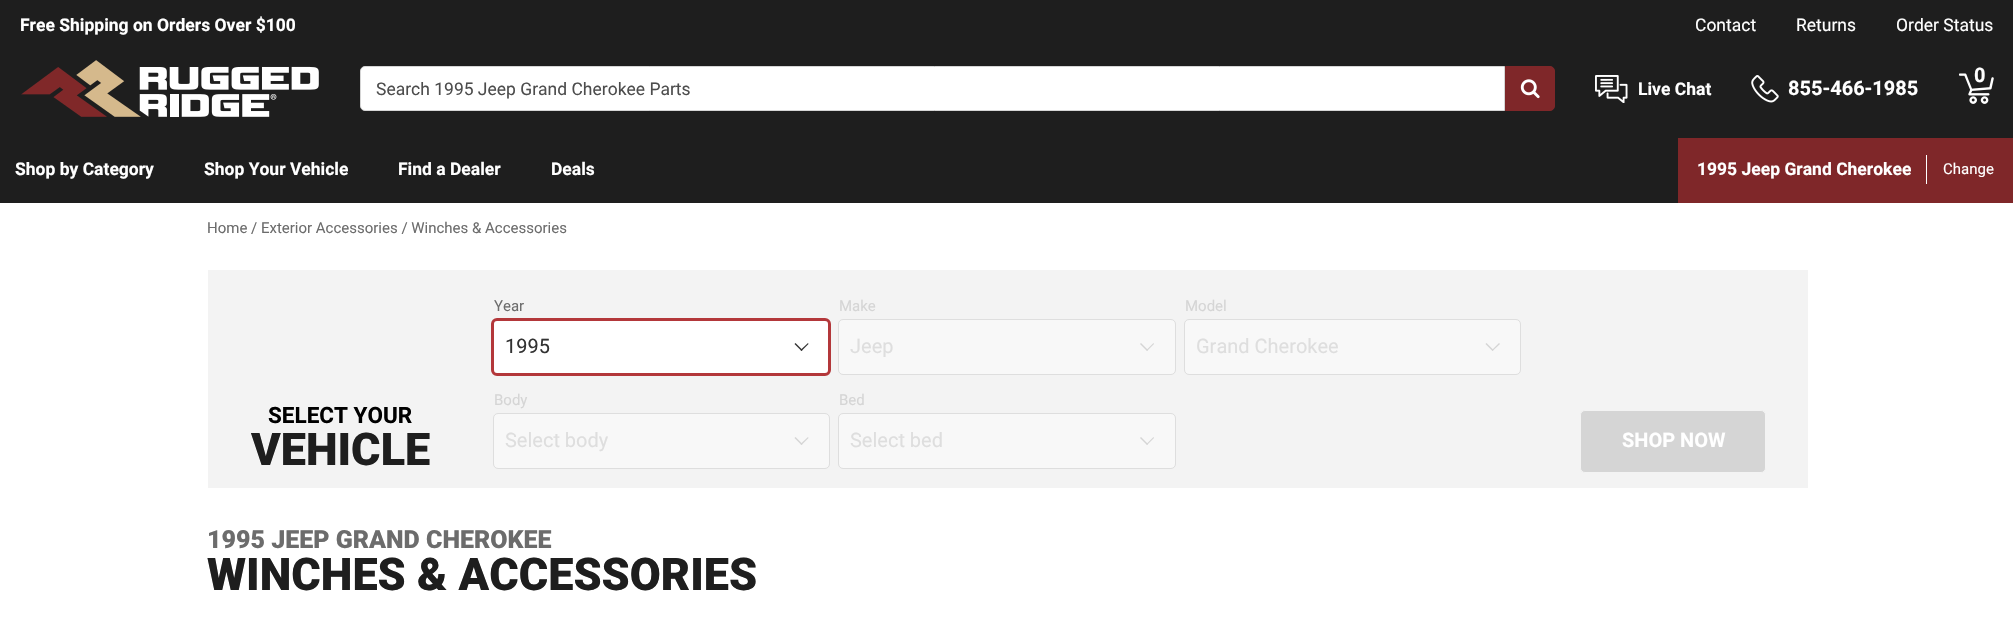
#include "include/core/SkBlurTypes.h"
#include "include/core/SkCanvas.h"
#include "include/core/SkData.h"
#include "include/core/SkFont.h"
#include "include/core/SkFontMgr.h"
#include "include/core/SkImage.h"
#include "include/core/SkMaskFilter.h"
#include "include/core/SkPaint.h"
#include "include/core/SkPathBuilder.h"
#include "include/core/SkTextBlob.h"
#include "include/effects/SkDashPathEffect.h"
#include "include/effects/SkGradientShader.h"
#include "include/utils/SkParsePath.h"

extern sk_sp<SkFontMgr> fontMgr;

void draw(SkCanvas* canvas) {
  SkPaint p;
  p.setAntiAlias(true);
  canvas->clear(SK_ColorWHITE);
  p.setColor(SkColorSetRGB(30, 30, 30));
  canvas->drawRect(SkRect::MakeLTRB(0, 0, 2013, 138), p);
  canvas->drawImageRect(SkImages::DeferredFromEncodedData(SkData::MakeFromFileName("images/1.png")), SkRect::MakeLTRB(21, 60, 319, 117), SkSamplingOptions());
  p.setColor(SK_ColorWHITE);
  canvas->drawPath(SkPathBuilder().moveTo(365, 66.5f).lineTo(1504.5f, 66.5f).lineTo(1504.5f, 110.5f).lineTo(365, 110.5f).cubicTo(362.5f, 110.5f, 360.5f, 108.5f, 360.5f, 106).lineTo(360.5f, 71).cubicTo(360.5f, 68.5f, 362.5f, 66.5f, 365, 66.5f).close().detach(), p);
  p.setStyle(SkPaint::kStroke_Style);
  p.setStrokeWidth(1);
  p.setColor(SkColorSetRGB(213, 213, 213));
  canvas->drawPath(SkPathBuilder().moveTo(365, 66.5f).lineTo(1504.5f, 66.5f).lineTo(1504.5f, 110.5f).lineTo(365, 110.5f).cubicTo(362.5f, 110.5f, 360.5f, 108.5f, 360.5f, 106).lineTo(360.5f, 71).cubicTo(360.5f, 68.5f, 362.5f, 66.5f, 365, 66.5f).close().detach(), p);
  p.setStyle(SkPaint::kFill_Style);
  p.setColor(SkColorSetRGB(127, 39, 41));
  canvas->drawPath(SkPathBuilder().moveTo(1505.5f, 66.5f).lineTo(1550, 66.5f).cubicTo(1552.5f, 66.5f, 1554.5f, 68.5f, 1554.5f, 71).lineTo(1554.5f, 106).cubicTo(1554.5f, 108.5f, 1552.5f, 110.5f, 1550, 110.5f).lineTo(1505.5f, 110.5f).close().detach(), p);
  p.setStyle(SkPaint::kStroke_Style);
  canvas->drawPath(SkPathBuilder().moveTo(1505.5f, 66.5f).lineTo(1550, 66.5f).cubicTo(1552.5f, 66.5f, 1554.5f, 68.5f, 1554.5f, 71).lineTo(1554.5f, 106).cubicTo(1554.5f, 108.5f, 1552.5f, 110.5f, 1550, 110.5f).lineTo(1505.5f, 110.5f).close().detach(), p);
  canvas->drawImageRect(SkImages::DeferredFromEncodedData(SkData::MakeFromFileName("images/2.png")), SkRect::MakeLTRB(1520, 79, 1540, 99), SkSamplingOptions());
  canvas->drawImageRect(SkImages::DeferredFromEncodedData(SkData::MakeFromFileName("images/3.png")), SkRect::MakeLTRB(1959, 73, 1994, 104), SkSamplingOptions());
  canvas->drawImageRect(SkImages::DeferredFromEncodedData(SkData::MakeFromFileName("images/4.png")), SkRect::MakeLTRB(1595, 75, 1628, 103), SkSamplingOptions());
  canvas->drawImageRect(SkImages::DeferredFromEncodedData(SkData::MakeFromFileName("images/5.png")), SkRect::MakeLTRB(1751, 75, 1779, 103), SkSamplingOptions());
  p.setStyle(SkPaint::kFill_Style);
  p.setColor(SkColorSetRGB(30, 30, 30));
  canvas->drawRect(SkRect::MakeLTRB(0, 138, 1678, 203), p);
  p.setColor(SkColorSetRGB(127, 39, 41));
  canvas->drawRect(SkRect::MakeLTRB(1678, 138, 2013, 203), p);
  p.setColor(SK_ColorWHITE);
  canvas->drawRect(SkRect::MakeLTRB(1926, 155, 1927, 184), p);
  p.setColor(SkColorSetRGB(243, 243, 243));
  canvas->drawRect(SkRect::MakeLTRB(208, 270, 1808, 488), p);
  p.setColor(SK_ColorWHITE);
  canvas->drawRoundRect(SkRect::MakeLTRB(494, 320, 829, 374), 4, 4, p);
  p.setStyle(SkPaint::kStroke_Style);
  p.setStrokeWidth(3);
  p.setColor(SkColorSetRGB(179, 55, 58));
  canvas->drawRoundRect(SkRect::MakeLTRB(492.5f, 319.5f, 829.5f, 374.5f), 4.5f, 4.5f, p);
  p.setStyle(SkPaint::kFill_Style);
  p.setColor(SkColorSetRGB(51, 51, 51));
  canvas->drawPath(SkPathBuilder().moveTo(800.5f, 350).lineTo(808, 343).lineTo(808.5f, 344).lineTo(801.5f, 351).close().detach(), p);
  canvas->drawPath(SkPathBuilder().moveTo(794.5f, 344).lineTo(795.5f, 343).lineTo(802.5f, 350).lineTo(801.5f, 351).close().detach(), p);
  p.setColor(SkColorSetRGB(248, 248, 248));
  canvas->drawRoundRect(SkRect::MakeLTRB(839, 320, 1175, 374), 4, 4, p);
  p.setStyle(SkPaint::kStroke_Style);
  p.setStrokeWidth(1);
  p.setColor(SkColorSetRGB(222, 222, 222));
  canvas->drawRoundRect(SkRect::MakeLTRB(838.5f, 319.5f, 1175.5f, 374.5f), 4.5f, 4.5f, p);
  p.setStyle(SkPaint::kFill_Style);
  p.setColor(SkColorSetRGB(213, 213, 213));
  canvas->drawPath(SkPathBuilder().moveTo(1146.5f, 350).lineTo(1153.5f, 343).lineTo(1154, 344).lineTo(1147, 351).close().detach(), p);
  canvas->drawPath(SkPathBuilder().moveTo(1140, 344).lineTo(1141, 343).lineTo(1148, 350).lineTo(1147, 351).close().detach(), p);
  p.setColor(SkColorSetRGB(248, 248, 248));
  canvas->drawRoundRect(SkRect::MakeLTRB(1185, 320, 1520, 374), 4, 4, p);
  p.setStyle(SkPaint::kStroke_Style);
  p.setColor(SkColorSetRGB(222, 222, 222));
  canvas->drawRoundRect(SkRect::MakeLTRB(1184.5f, 319.5f, 1520.5f, 374.5f), 4.5f, 4.5f, p);
  p.setStyle(SkPaint::kFill_Style);
  p.setColor(SkColorSetRGB(213, 213, 213));
  canvas->drawPath(SkPathBuilder().moveTo(1492, 350).lineTo(1499, 343).lineTo(1500, 344).lineTo(1492.5f, 351).close().detach(), p);
  canvas->drawPath(SkPathBuilder().moveTo(1485.5f, 344).lineTo(1486.5f, 343).lineTo(1493.5f, 350).lineTo(1492.5f, 351).close().detach(), p);
  p.setColor(SkColorSetRGB(248, 248, 248));
  canvas->drawRoundRect(SkRect::MakeLTRB(494, 414, 829, 468), 4, 4, p);
  p.setStyle(SkPaint::kStroke_Style);
  p.setColor(SkColorSetRGB(222, 222, 222));
  canvas->drawRoundRect(SkRect::MakeLTRB(493.5f, 413.5f, 829.5f, 468.5f), 4.5f, 4.5f, p);
  p.setStyle(SkPaint::kFill_Style);
  p.setColor(SkColorSetRGB(213, 213, 213));
  canvas->drawPath(SkPathBuilder().moveTo(800.5f, 444).lineTo(808, 437).lineTo(808.5f, 438).lineTo(801.5f, 445).close().detach(), p);
  canvas->drawPath(SkPathBuilder().moveTo(794.5f, 438).lineTo(795.5f, 437).lineTo(802.5f, 444).lineTo(801.5f, 445).close().detach(), p);
  p.setColor(SkColorSetRGB(248, 248, 248));
  canvas->drawRoundRect(SkRect::MakeLTRB(839, 414, 1175, 468), 4, 4, p);
  p.setStyle(SkPaint::kStroke_Style);
  p.setColor(SkColorSetRGB(222, 222, 222));
  canvas->drawRoundRect(SkRect::MakeLTRB(838.5f, 413.5f, 1175.5f, 468.5f), 4.5f, 4.5f, p);
  p.setStyle(SkPaint::kFill_Style);
  p.setColor(SkColorSetRGB(213, 213, 213));
  canvas->drawPath(SkPathBuilder().moveTo(1146.5f, 444).lineTo(1153.5f, 437).lineTo(1154, 438).lineTo(1147, 445).close().detach(), p);
  canvas->drawPath(SkPathBuilder().moveTo(1140, 438).lineTo(1141, 437).lineTo(1148, 444).lineTo(1147, 445).close().detach(), p);
  canvas->drawRoundRect(SkRect::MakeLTRB(1580.5f, 410.5f, 1765.5f, 472.5f), 4.5f, 4.5f, p);
  p.setStyle(SkPaint::kStroke_Style);
  p.setColor(SkColorSetRGB(243, 243, 243));
  canvas->drawRoundRect(SkRect::MakeLTRB(1580.5f, 410.5f, 1765.5f, 472.5f), 4.5f, 4.5f, p);
  SkFont font1(fontMgr->matchFamilyStyle("Roboto", SkFontStyle::Bold()), 17.5f);
  font1.setSubpixel(true);
  p.setStyle(SkPaint::kFill_Style);
  p.setColor(SK_ColorWHITE);
  canvas->drawString("Free Shipping on Orders Over $100", 20, 31, font1, p);
  SkFont font2(fontMgr->matchFamilyStyle("Roboto", SkFontStyle::Normal()), 17.5f);
  font2.setSubpixel(true);
  canvas->drawString("Contact", 1695, 31, font2, p);
  canvas->drawString("Returns", 1796, 31, font2, p);
  canvas->drawString("Order Status", 1896, 31, font2, p);
  p.setColor(SkColorSetRGB(77, 77, 77));
  canvas->drawString("Search 1995 Jeep Grand Cherokee Parts", 376, 95, font2, p);
  SkFont font3(fontMgr->matchFamilyStyle("Roboto", SkFontStyle::Bold()), 20);
  font3.setSubpixel(true);
  p.setColor(SK_ColorWHITE);
  canvas->drawString("0", 1974, 82, font3, p);
  canvas->drawString("Live Chat", 1638, 95, font1, p);
  canvas->drawString("855-466-1985", 1788, 95, font3, p);
  canvas->drawString("Shop by Category", 15, 175, font1, p);
  canvas->drawString("Shop Your Vehicle", 204, 175, font1, p);
  canvas->drawString("Find a Dealer", 398, 175, font1, p);
  canvas->drawString("Deals", 551, 175, font1, p);
  canvas->drawString("1995 Jeep Grand Cherokee", 1697, 175, font1, p);
  SkFont font4(fontMgr->matchFamilyStyle("Roboto", SkFontStyle::Normal()), 15);
  font4.setSubpixel(true);
  canvas->drawString("Change", 1943, 174, font4, p);
  p.setColor(SkColorSetRGB(108, 108, 108));
  canvas->drawString("Home / Exterior Accessories / Winches & Accessories", 207, 233, font4, p);
  SkFont font5(fontMgr->matchFamilyStyle("Roboto", SkFontStyle::Bold()), 22.5f);
  font5.setSubpixel(true);
  p.setColor(SK_ColorBLACK);
  canvas->drawString("SELECT YOUR", 268, 423, font5, p);
  SkFont font6(fontMgr->matchFamilyStyle("Roboto", SkFontStyle(900, SkFontStyle::kNormal_Width, SkFontStyle::kUpright_Slant)), 45);
  font6.setSubpixel(true);
  p.setColor(SkColorSetRGB(30, 30, 30));
  canvas->drawString("VEHICLE", 251, 465, font6, p);
  p.setColor(SkColorSetRGB(108, 108, 108));
  canvas->drawString("Year", 494, 311, font4, p);
  SkFont font7(fontMgr->matchFamilyStyle("Roboto", SkFontStyle::Normal()), 20);
  font7.setSubpixel(true);
  p.setColor(SkColorSetRGB(51, 51, 51));
  canvas->drawString("1995", 505, 353, font7, p);
  p.setColor(SkColorSetRGB(213, 213, 213));
  canvas->drawString("Make", 839, 311, font4, p);
  p.setColor(SkColorSetRGB(222, 222, 222));
  canvas->drawString("Jeep", 850, 353, font7, p);
  p.setColor(SkColorSetRGB(213, 213, 213));
  canvas->drawString("Model", 1185, 311, font4, p);
  p.setColor(SkColorSetRGB(222, 222, 222));
  canvas->drawString("Grand Cherokee", 1196, 353, font7, p);
  p.setColor(SkColorSetRGB(213, 213, 213));
  canvas->drawString("Body", 494, 405, font4, p);
  p.setColor(SkColorSetRGB(222, 222, 222));
  canvas->drawString("Select body", 505, 447, font7, p);
  p.setColor(SkColorSetRGB(213, 213, 213));
  canvas->drawString("Bed", 839, 405, font4, p);
  p.setColor(SkColorSetRGB(222, 222, 222));
  canvas->drawString("Select bed", 850, 447, font7, p);
  p.setColor(SK_ColorWHITE);
  canvas->drawString("SHOP NOW", 1622, 447, font3, p);
  SkFont font8(fontMgr->matchFamilyStyle("Roboto", SkFontStyle(900, SkFontStyle::kNormal_Width, SkFontStyle::kUpright_Slant)), 25);
  font8.setSubpixel(true);
  p.setColor(SkColorSetRGB(108, 108, 108));
  canvas->drawString("1995 JEEP GRAND CHEROKEE", 207, 548, font8, p);
  p.setColor(SkColorSetRGB(30, 30, 30));
  canvas->drawString("WINCHES & ACCESSORIES", 207, 590, font6, p);
}
